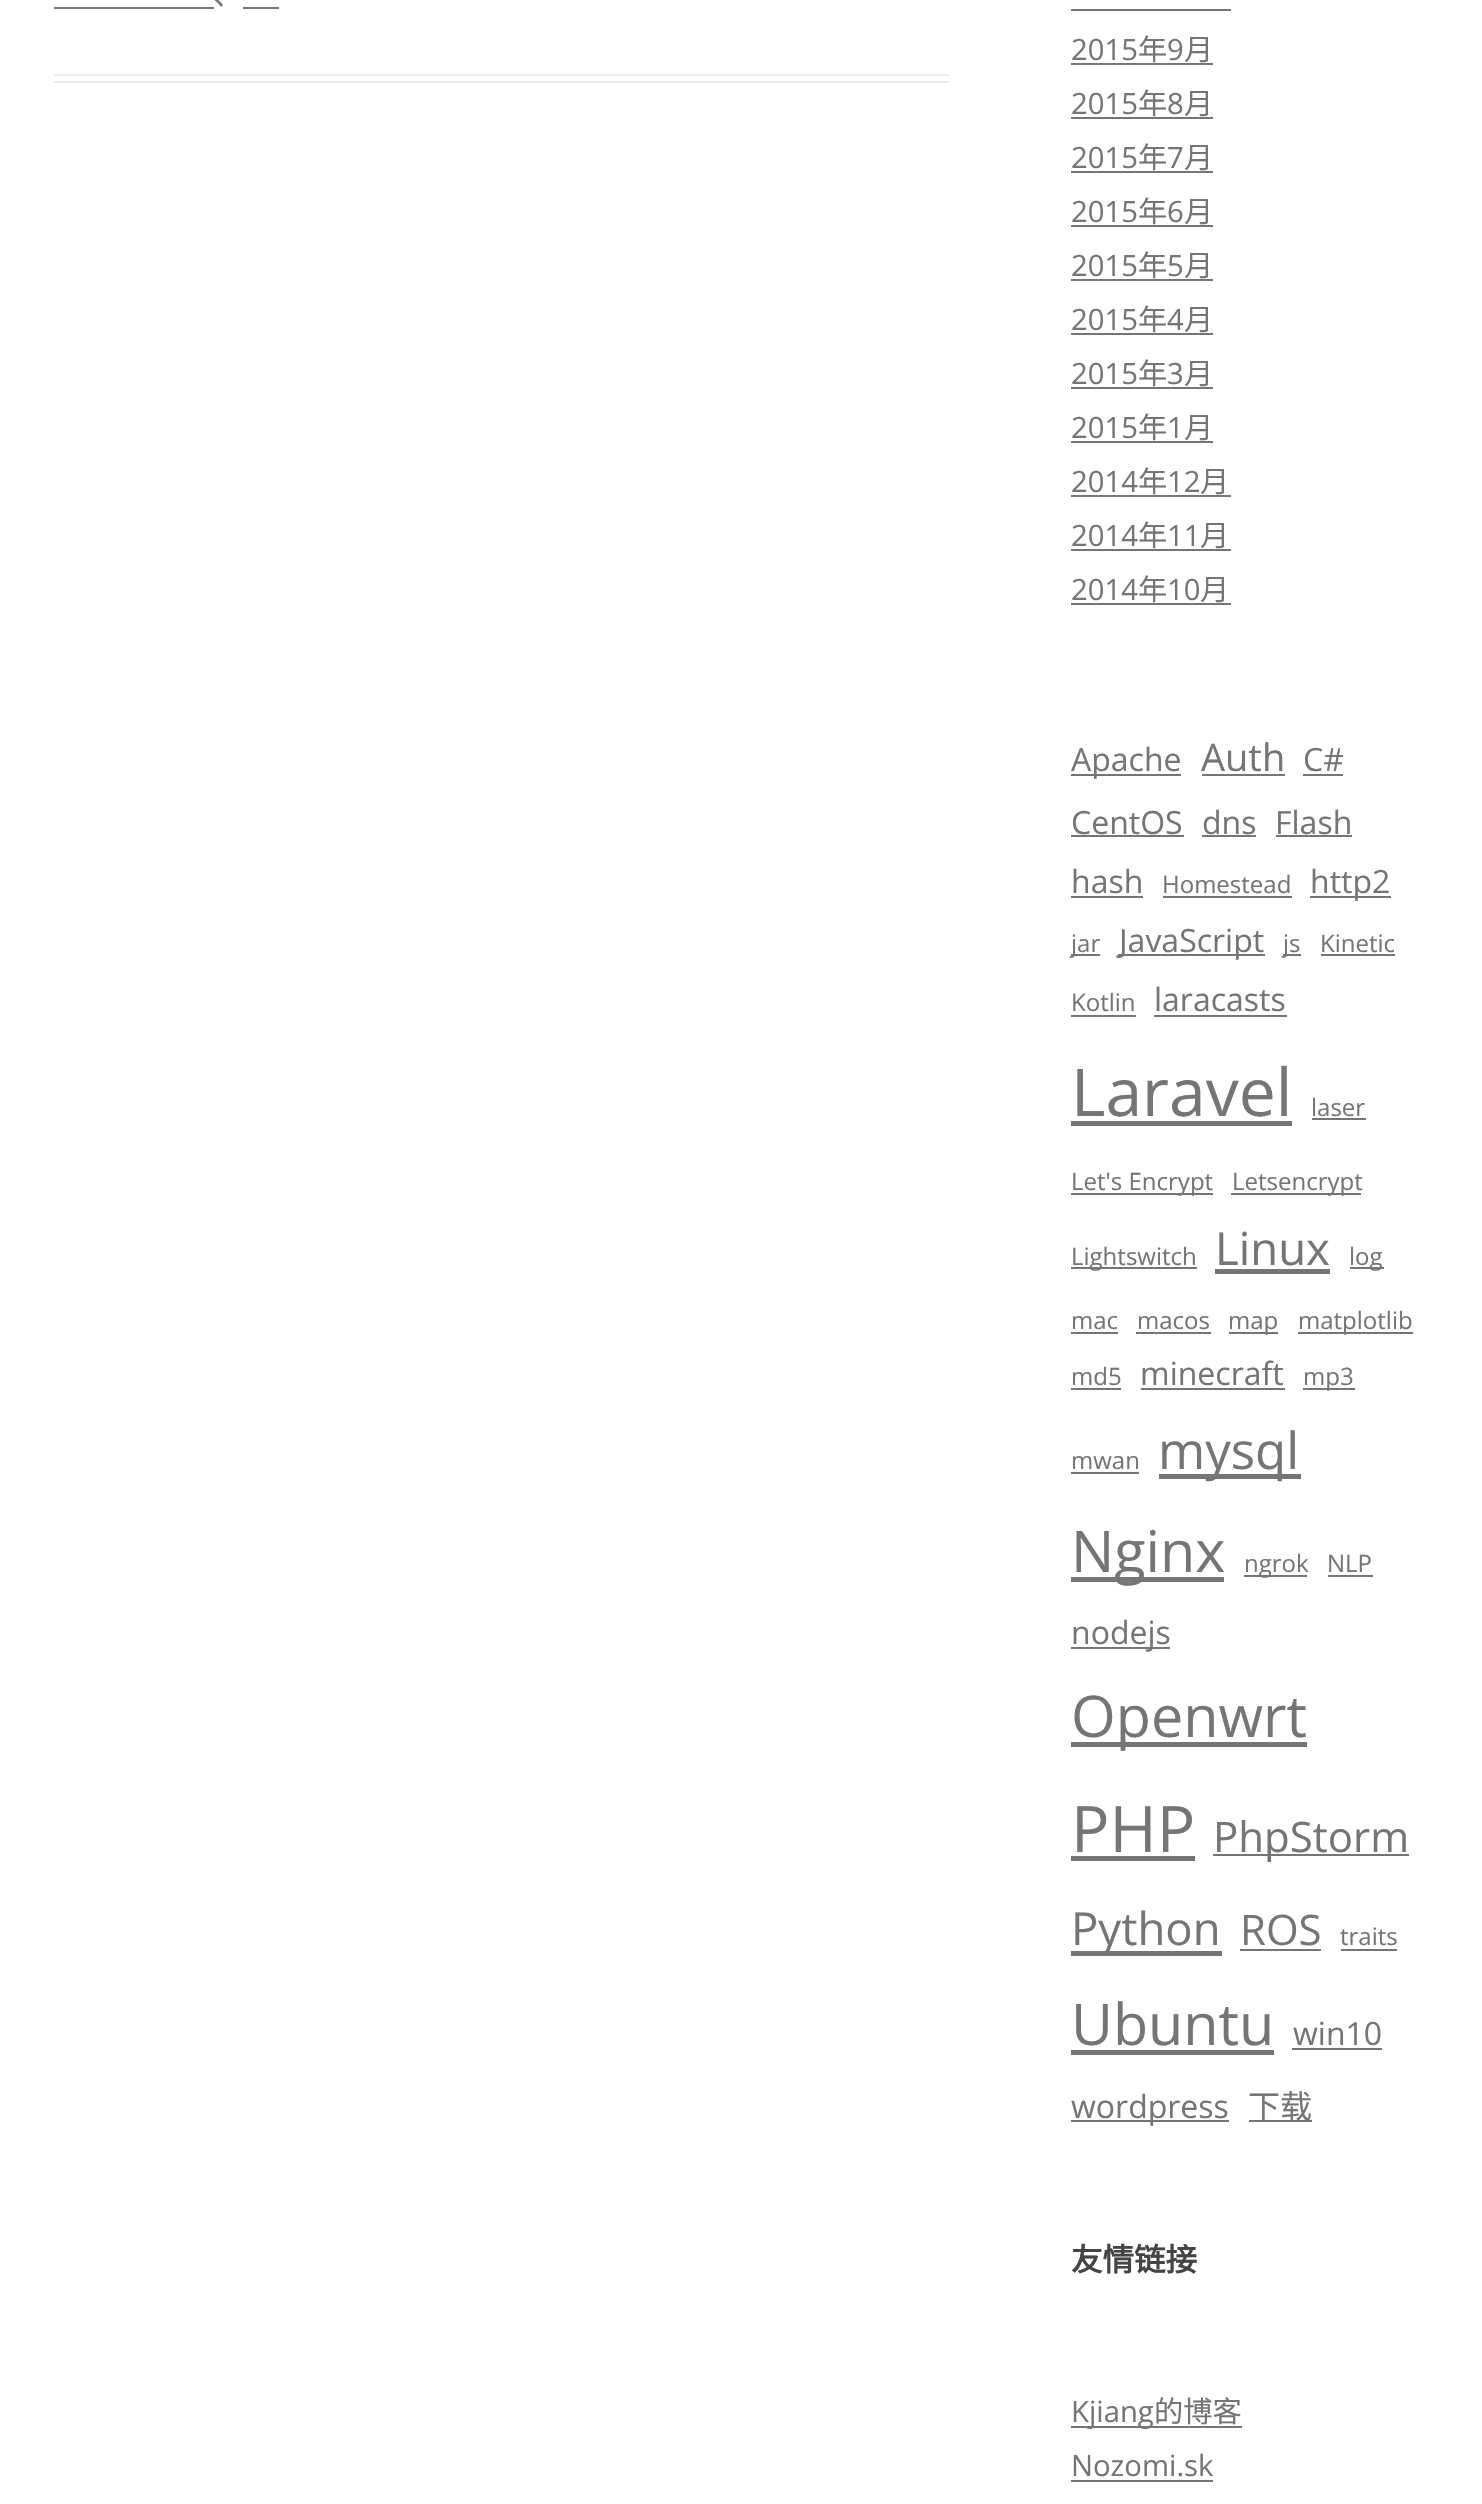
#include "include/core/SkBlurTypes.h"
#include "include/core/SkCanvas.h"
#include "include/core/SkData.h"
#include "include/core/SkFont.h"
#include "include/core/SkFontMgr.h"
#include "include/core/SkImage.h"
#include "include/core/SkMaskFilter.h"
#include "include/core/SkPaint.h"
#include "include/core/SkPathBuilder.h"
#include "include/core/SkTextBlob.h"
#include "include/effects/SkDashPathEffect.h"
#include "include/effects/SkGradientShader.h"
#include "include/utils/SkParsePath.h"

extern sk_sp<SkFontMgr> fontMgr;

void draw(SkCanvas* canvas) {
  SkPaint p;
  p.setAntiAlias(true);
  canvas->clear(SK_ColorWHITE);
  p.setColor(SkColorSetRGB(237, 237, 237));
  canvas->drawRect(SkRect::MakeLTRB(54, 74, 950, 76), p);
  canvas->drawRect(SkRect::MakeLTRB(54, 81, 950, 83), p);
  p.setColor(SkColorSetRGB(117, 117, 117));
  canvas->drawRect(SkRect::MakeLTRB(54, 7, 214, 9), p);
  canvas->drawRect(SkRect::MakeLTRB(243, 7, 279, 9), p);
  canvas->drawRect(SkRect::MakeLTRB(1071, 9, 1231, 11), p);
  canvas->drawRect(SkRect::MakeLTRB(1071, 63, 1213, 65), p);
  canvas->drawRect(SkRect::MakeLTRB(1071, 117, 1213, 119), p);
  canvas->drawRect(SkRect::MakeLTRB(1071, 171, 1213, 173), p);
  canvas->drawRect(SkRect::MakeLTRB(1071, 225, 1213, 227), p);
  canvas->drawRect(SkRect::MakeLTRB(1071, 279, 1213, 281), p);
  canvas->drawRect(SkRect::MakeLTRB(1071, 333, 1213, 335), p);
  canvas->drawRect(SkRect::MakeLTRB(1071, 387, 1213, 389), p);
  canvas->drawRect(SkRect::MakeLTRB(1071, 441, 1213, 443), p);
  canvas->drawRect(SkRect::MakeLTRB(1071, 495, 1231, 497), p);
  canvas->drawRect(SkRect::MakeLTRB(1071, 549, 1231, 551), p);
  canvas->drawRect(SkRect::MakeLTRB(1071, 603, 1231, 605), p);
  canvas->drawRect(SkRect::MakeLTRB(1071, 774, 1181, 776), p);
  canvas->drawRect(SkRect::MakeLTRB(1202, 774, 1285, 776), p);
  canvas->drawRect(SkRect::MakeLTRB(1303, 774, 1343, 776), p);
  canvas->drawRect(SkRect::MakeLTRB(1071, 835, 1184, 837), p);
  canvas->drawRect(SkRect::MakeLTRB(1202, 835, 1256, 837), p);
  canvas->drawRect(SkRect::MakeLTRB(1276, 835, 1352, 837), p);
  canvas->drawRect(SkRect::MakeLTRB(1071, 896, 1143, 898), p);
  canvas->drawRect(SkRect::MakeLTRB(1163, 896, 1292, 898), p);
  canvas->drawRect(SkRect::MakeLTRB(1310, 896, 1391, 898), p);
  canvas->drawRect(SkRect::MakeLTRB(1071, 954, 1100, 956), p);
  canvas->drawRect(SkRect::MakeLTRB(1118, 954, 1265, 956), p);
  canvas->drawRect(SkRect::MakeLTRB(1283, 954, 1301, 956), p);
  canvas->drawRect(SkRect::MakeLTRB(1321, 954, 1395, 956), p);
  canvas->drawRect(SkRect::MakeLTRB(1071, 1015, 1136, 1017), p);
  canvas->drawRect(SkRect::MakeLTRB(1154, 1015, 1287, 1017), p);
  canvas->drawRect(SkRect::MakeLTRB(1071, 1121, 1292, 1126), p);
  canvas->drawRect(SkRect::MakeLTRB(1312, 1118, 1366, 1120), p);
  canvas->drawRect(SkRect::MakeLTRB(1071, 1193, 1213, 1195), p);
  canvas->drawRect(SkRect::MakeLTRB(1231, 1193, 1361, 1195), p);
  canvas->drawRect(SkRect::MakeLTRB(1071, 1267, 1197, 1269), p);
  canvas->drawRect(SkRect::MakeLTRB(1215, 1269, 1330, 1274), p);
  canvas->drawRect(SkRect::MakeLTRB(1350, 1267, 1384, 1269), p);
  canvas->drawRect(SkRect::MakeLTRB(1071, 1332, 1118, 1334), p);
  canvas->drawRect(SkRect::MakeLTRB(1136, 1332, 1211, 1334), p);
  canvas->drawRect(SkRect::MakeLTRB(1229, 1332, 1278, 1334), p);
  canvas->drawRect(SkRect::MakeLTRB(1298, 1332, 1413, 1334), p);
  canvas->drawRect(SkRect::MakeLTRB(1071, 1388, 1121, 1390), p);
  canvas->drawRect(SkRect::MakeLTRB(1141, 1388, 1285, 1390), p);
  canvas->drawRect(SkRect::MakeLTRB(1303, 1388, 1355, 1390), p);
  canvas->drawRect(SkRect::MakeLTRB(1071, 1472, 1139, 1474), p);
  canvas->drawRect(SkRect::MakeLTRB(1159, 1474, 1301, 1479), p);
  canvas->drawRect(SkRect::MakeLTRB(1071, 1577, 1224, 1582), p);
  canvas->drawRect(SkRect::MakeLTRB(1244, 1575, 1307, 1577), p);
  canvas->drawRect(SkRect::MakeLTRB(1328, 1575, 1373, 1577), p);
  canvas->drawRect(SkRect::MakeLTRB(1071, 1647, 1170, 1649), p);
  canvas->drawRect(SkRect::MakeLTRB(1071, 1742, 1307, 1747), p);
  canvas->drawRect(SkRect::MakeLTRB(1071, 1856, 1195, 1861), p);
  canvas->drawRect(SkRect::MakeLTRB(1213, 1854, 1409, 1856), p);
  canvas->drawRect(SkRect::MakeLTRB(1071, 1951, 1222, 1956), p);
  canvas->drawRect(SkRect::MakeLTRB(1240, 1949, 1321, 1951), p);
  canvas->drawRect(SkRect::MakeLTRB(1341, 1949, 1397, 1951), p);
  canvas->drawRect(SkRect::MakeLTRB(1071, 2050, 1274, 2055), p);
  canvas->drawRect(SkRect::MakeLTRB(1292, 2048, 1382, 2050), p);
  canvas->drawRect(SkRect::MakeLTRB(1071, 2120, 1229, 2122), p);
  canvas->drawRect(SkRect::MakeLTRB(1249, 2120, 1312, 2122), p);
  canvas->drawRect(SkRect::MakeLTRB(1071, 2426, 1242, 2428), p);
  canvas->drawRect(SkRect::MakeLTRB(1071, 2480, 1213, 2482), p);
  SkFont font1(fontMgr->matchFamilyStyle("Noto Sans CJK SC", SkFontStyle::Normal()), 29.25f);
  font1.setSubpixel(true);
  canvas->drawString("、", 213, 5, font1, p);
  SkFont font2(fontMgr->matchFamilyStyle("Open Sans", SkFontStyle::Normal()), 29.25f);
  font2.setSubpixel(true);
  canvas->drawString("2015", 1071, 60, font2, p);
  canvas->drawString("年", 1138, 60, font1, p);
  canvas->drawString("9", 1167, 60, font2, p);
  canvas->drawString("月", 1184, 60, font1, p);
  canvas->drawString("2015", 1071, 114, font2, p);
  canvas->drawString("年", 1138, 114, font1, p);
  canvas->drawString("8", 1167, 114, font2, p);
  canvas->drawString("月", 1184, 114, font1, p);
  canvas->drawString("2015", 1071, 168, font2, p);
  canvas->drawString("年", 1138, 168, font1, p);
  canvas->drawString("7", 1167, 168, font2, p);
  canvas->drawString("月", 1184, 168, font1, p);
  canvas->drawString("2015", 1071, 222, font2, p);
  canvas->drawString("年", 1138, 222, font1, p);
  canvas->drawString("6", 1167, 222, font2, p);
  canvas->drawString("月", 1184, 222, font1, p);
  canvas->drawString("2015", 1071, 276, font2, p);
  canvas->drawString("年", 1138, 276, font1, p);
  canvas->drawString("5", 1167, 276, font2, p);
  canvas->drawString("月", 1184, 276, font1, p);
  canvas->drawString("2015", 1071, 330, font2, p);
  canvas->drawString("年", 1138, 330, font1, p);
  canvas->drawString("4", 1167, 330, font2, p);
  canvas->drawString("月", 1184, 330, font1, p);
  canvas->drawString("2015", 1071, 384, font2, p);
  canvas->drawString("年", 1138, 384, font1, p);
  canvas->drawString("3", 1167, 384, font2, p);
  canvas->drawString("月", 1184, 384, font1, p);
  canvas->drawString("2015", 1071, 438, font2, p);
  canvas->drawString("年", 1138, 438, font1, p);
  canvas->drawString("1", 1167, 438, font2, p);
  canvas->drawString("月", 1184, 438, font1, p);
  canvas->drawString("2014", 1071, 492, font2, p);
  canvas->drawString("年", 1138, 492, font1, p);
  canvas->drawString("12", 1167, 492, font2, p);
  canvas->drawString("月", 1200, 492, font1, p);
  canvas->drawString("2014", 1071, 546, font2, p);
  canvas->drawString("年", 1138, 546, font1, p);
  canvas->drawString("11", 1167, 546, font2, p);
  canvas->drawString("月", 1200, 546, font1, p);
  canvas->drawString("2014", 1071, 600, font2, p);
  canvas->drawString("年", 1138, 600, font1, p);
  canvas->drawString("10", 1167, 600, font2, p);
  canvas->drawString("月", 1200, 600, font1, p);
  SkFont font3(fontMgr->matchFamilyStyle("Open Sans", SkFontStyle::Normal()), 32);
  font3.setSubpixel(true);
  canvas->drawString("Apache", 1071, 771, font3, p);
  SkFont font4(fontMgr->matchFamilyStyle("Open Sans", SkFontStyle::Normal()), 38);
  font4.setSubpixel(true);
  canvas->drawString("Auth", 1201, 771, font4, p);
  canvas->drawString("C#", 1303, 771, font3, p);
  canvas->drawString("CentOS", 1071, 834, font3, p);
  canvas->drawString("dns", 1202, 834, font3, p);
  canvas->drawString("Flash", 1275, 834, font3, p);
  canvas->drawString("hash", 1071, 893, font3, p);
  SkFont font5(fontMgr->matchFamilyStyle("Open Sans", SkFontStyle::Normal()), 24);
  font5.setSubpixel(true);
  canvas->drawString("Homestead", 1162, 893, font5, p);
  canvas->drawString("http2", 1310, 893, font3, p);
  canvas->drawString("jar", 1071, 952, font5, p);
  canvas->drawString("JavaScript", 1119, 952, font3, p);
  canvas->drawString("js", 1283, 952, font5, p);
  canvas->drawString("Kinetic", 1320, 952, font5, p);
  canvas->drawString("Kotlin", 1071, 1011, font5, p);
  canvas->drawString("laracasts", 1154, 1011, font3, p);
  SkFont font6(fontMgr->matchFamilyStyle("Open Sans", SkFontStyle::Normal()), 66);
  font6.setSubpixel(true);
  canvas->drawString("Laravel", 1071, 1116, font6, p);
  canvas->drawString("laser", 1311, 1116, font5, p);
  canvas->drawString("Let's Encrypt", 1071, 1190, font5, p);
  canvas->drawString("Letsencrypt", 1232, 1190, font5, p);
  canvas->drawString("Lightswitch", 1071, 1265, font5, p);
  SkFont font7(fontMgr->matchFamilyStyle("Open Sans", SkFontStyle::Normal()), 45.5f);
  font7.setSubpixel(true);
  canvas->drawString("Linux", 1215, 1265, font7, p);
  canvas->drawString("log", 1349, 1265, font5, p);
  canvas->drawString("mac", 1071, 1329, font5, p);
  canvas->drawString("macos", 1137, 1329, font5, p);
  canvas->drawString("map", 1228, 1329, font5, p);
  canvas->drawString("matplotlib", 1298, 1329, font5, p);
  canvas->drawString("md5", 1071, 1385, font5, p);
  canvas->drawString("minecraft", 1140, 1385, font3, p);
  canvas->drawString("mp3", 1303, 1385, font5, p);
  canvas->drawString("mwan", 1071, 1469, font5, p);
  SkFont font8(fontMgr->matchFamilyStyle("Open Sans", SkFontStyle::Normal()), 51);
  font8.setSubpixel(true);
  canvas->drawString("mysql", 1158, 1469, font8, p);
  SkFont font9(fontMgr->matchFamilyStyle("Open Sans", SkFontStyle::Normal()), 57.5f);
  font9.setSubpixel(true);
  canvas->drawString("Nginx", 1071, 1572, font9, p);
  canvas->drawString("ngrok", 1244, 1572, font5, p);
  canvas->drawString("NLP", 1327, 1572, font5, p);
  canvas->drawString("nodejs", 1071, 1644, font3, p);
  canvas->drawString("Openwrt", 1071, 1737, font9, p);
  SkFont font10(fontMgr->matchFamilyStyle("Open Sans", SkFontStyle::Normal()), 64);
  font10.setSubpixel(true);
  canvas->drawString("PHP", 1071, 1852, font10, p);
  SkFont font11(fontMgr->matchFamilyStyle("Open Sans", SkFontStyle::Normal()), 42);
  font11.setSubpixel(true);
  canvas->drawString("PhpStorm", 1213, 1852, font11, p);
  canvas->drawString("Python", 1071, 1945, font7, p);
  canvas->drawString("ROS", 1240, 1945, font11, p);
  canvas->drawString("traits", 1340, 1945, font5, p);
  canvas->drawString("Ubuntu", 1071, 2045, font9, p);
  canvas->drawString("win10", 1293, 2045, font3, p);
  canvas->drawString("wordpress", 1071, 2118, font3, p);
  SkFont font12(fontMgr->matchFamilyStyle("Noto Sans CJK SC", SkFontStyle::Normal()), 32);
  font12.setSubpixel(true);
  canvas->drawString("下载", 1248, 2118, font12, p);
  SkFont font13(fontMgr->matchFamilyStyle("Noto Sans CJK SC", SkFontStyle::Bold()), 31.5f);
  font13.setSubpixel(true);
  p.setColor(SkColorSetRGB(68, 68, 68));
  canvas->drawString("友情链接", 1071, 2271, font13, p);
  p.setColor(SkColorSetRGB(117, 117, 117));
  canvas->drawString("Kjiang", 1071, 2422, font2, p);
  canvas->drawString("的博客", 1154, 2422, font1, p);
  canvas->drawString("Nozomi.sk", 1071, 2476, font2, p);
}
